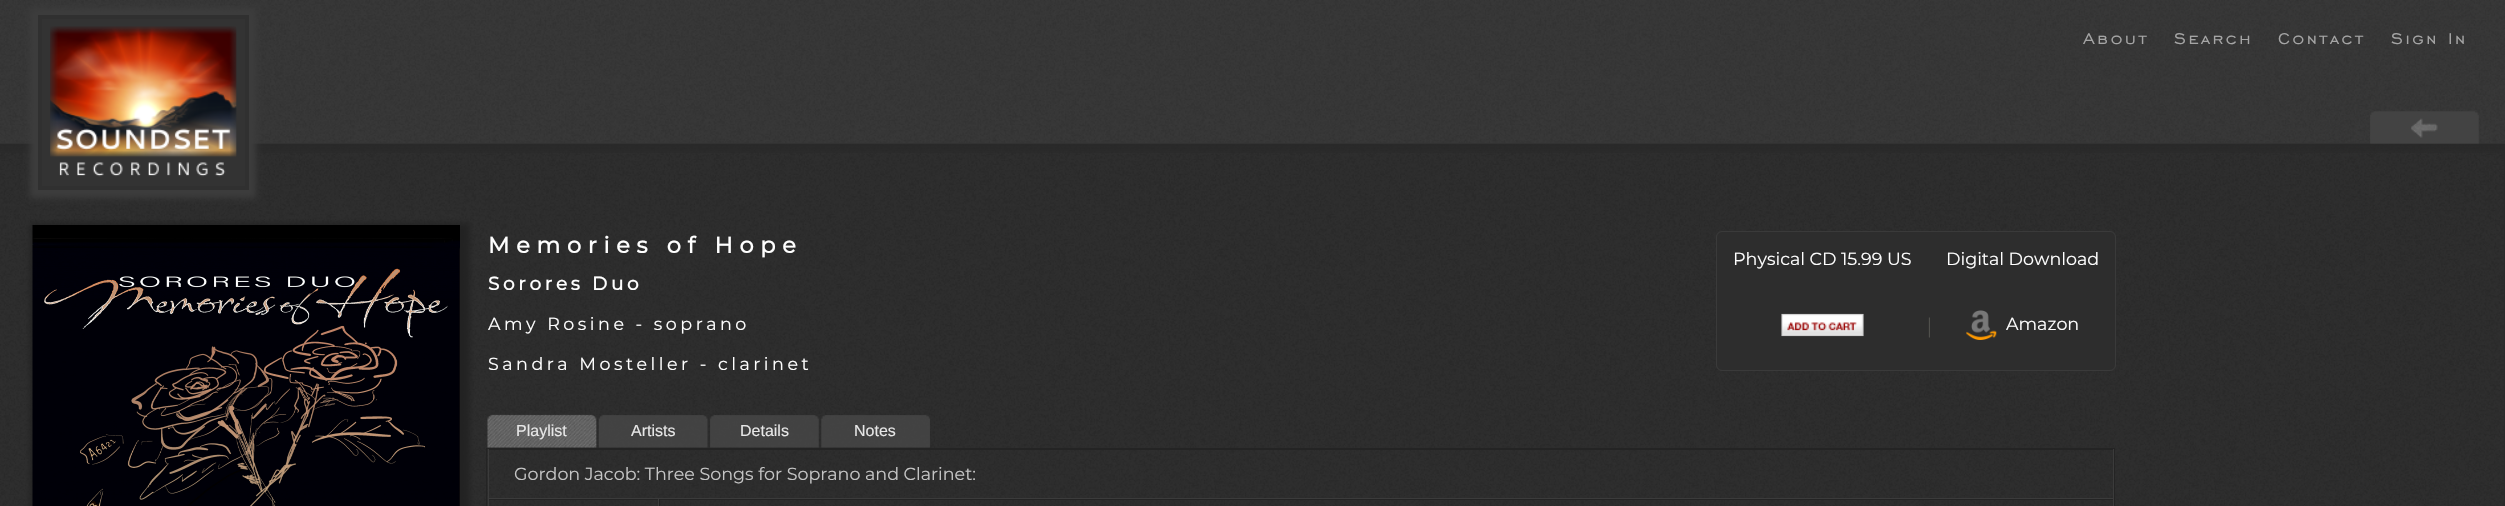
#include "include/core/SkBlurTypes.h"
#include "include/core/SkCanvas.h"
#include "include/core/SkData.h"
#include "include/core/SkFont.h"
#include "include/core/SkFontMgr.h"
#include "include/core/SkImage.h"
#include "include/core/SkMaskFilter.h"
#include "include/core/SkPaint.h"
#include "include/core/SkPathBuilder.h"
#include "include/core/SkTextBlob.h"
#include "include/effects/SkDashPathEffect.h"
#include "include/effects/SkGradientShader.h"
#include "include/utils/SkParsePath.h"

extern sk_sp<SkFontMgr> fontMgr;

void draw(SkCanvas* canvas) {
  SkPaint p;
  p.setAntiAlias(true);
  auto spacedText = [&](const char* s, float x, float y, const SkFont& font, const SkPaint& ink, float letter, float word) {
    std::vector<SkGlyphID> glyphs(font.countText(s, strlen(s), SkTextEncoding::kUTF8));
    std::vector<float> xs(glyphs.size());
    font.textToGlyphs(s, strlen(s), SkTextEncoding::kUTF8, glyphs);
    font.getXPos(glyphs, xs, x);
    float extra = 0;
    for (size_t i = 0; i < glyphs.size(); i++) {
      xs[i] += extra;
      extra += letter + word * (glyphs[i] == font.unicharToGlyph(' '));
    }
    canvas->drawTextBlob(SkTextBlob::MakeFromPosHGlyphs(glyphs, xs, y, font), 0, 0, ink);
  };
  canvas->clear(SkColorSetRGB(42, 42, 42));
  canvas->drawImageRect(SkImages::DeferredFromEncodedData(SkData::MakeFromFileName("images/1.png")), SkRect::MakeLTRB(0, 144, 2504, 506), SkSamplingOptions());
  p.setColor(SkColorSetRGB(51, 51, 51));
  canvas->drawRect(SkRect::MakeLTRB(0, 0, 2505, 144), p);
  canvas->drawImageRect(SkImages::DeferredFromEncodedData(SkData::MakeFromFileName("images/2.png")), SkRect::MakeLTRB(0, 0, 2505, 143), SkSamplingOptions());
  canvas->drawImageRect(SkImages::DeferredFromEncodedData(SkData::MakeFromFileName("images/4.png")), SkRect::MakeLTRB(2370, 111, 2479, 144), SkSamplingOptions());
  canvas->drawImageRect(SkImages::DeferredFromEncodedData(SkData::MakeFromFileName("images/6.png")), SkRect::MakeLTRB(0, 143, 2504, 153), SkSamplingOptions());
  p.setColor(SkColorSetRGB(60, 60, 60));
  p.setMaskFilter(SkMaskFilter::MakeBlur(kNormal_SkBlurStyle, 3));
  canvas->drawRect(SkRect::MakeLTRB(30, 8, 256, 198), p);
  p.setMaskFilter(nullptr);
  p.setColor(SkColorSetRGB(51, 51, 51));
  canvas->drawRect(SkRect::MakeLTRB(40, 17, 247, 188), p);
  p.setStyle(SkPaint::kStroke_Style);
  p.setStrokeWidth(4);
  p.setColor(SkColorSetRGB(48, 48, 48));
  canvas->drawRect(SkRect::MakeLTRB(40, 17, 247, 188), p);
  canvas->drawImageRect(SkImages::DeferredFromEncodedData(SkData::MakeFromFileName("images/3.png")), SkRect::MakeLTRB(50, 26, 237, 177), SkSamplingOptions());
  canvas->drawImageRect(SkImages::DeferredFromEncodedData(SkData::MakeFromFileName("images/5.png")), SkRect::MakeLTRB(2411, 118, 2438, 138), SkSamplingOptions());
  p.setStyle(SkPaint::kFill_Style);
  p.setColor(SkColorSetRGB(34, 34, 34));
  p.setMaskFilter(SkMaskFilter::MakeBlur(kNormal_SkBlurStyle, 3));
  canvas->drawRect(SkRect::MakeLTRB(30, 223, 470, 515), p);
  p.setMaskFilter(nullptr);
  canvas->drawImageRect(SkImages::DeferredFromEncodedData(SkData::MakeFromFileName("images/7.png")), SkRect::MakeLTRB(32, 225, 460, 506), SkSamplingOptions());
  p.setColor(SkColorSetRGB(45, 45, 45));
  canvas->drawRoundRect(SkRect::MakeLTRB(1716.5f, 231.5f, 2115.5f, 370.5f), 5.5f, 5.5f, p);
  p.setStyle(SkPaint::kStroke_Style);
  p.setStrokeWidth(1);
  p.setColor(SkColorSetRGB(58, 58, 58));
  canvas->drawRoundRect(SkRect::MakeLTRB(1716.5f, 231.5f, 2115.5f, 370.5f), 5.5f, 5.5f, p);
  canvas->drawImageRect(SkImages::DeferredFromEncodedData(SkData::MakeFromFileName("images/8.png")), SkRect::MakeLTRB(1781, 313, 1864, 337), SkSamplingOptions());
  canvas->drawImageRect(SkImages::DeferredFromEncodedData(SkData::MakeFromFileName("images/9.png")), SkRect::MakeLTRB(1928, 317, 1930, 338), SkSamplingOptions());
  canvas->drawImageRect(SkImages::DeferredFromEncodedData(SkData::MakeFromFileName("images/10.png")), SkRect::MakeLTRB(1966, 310, 1997, 340), SkSamplingOptions());
  canvas->drawImageRect(SkImages::DeferredFromEncodedData(SkData::MakeFromFileName("images/11.png")), SkRect::MakeLTRB(487, 414, 597, 448), SkSamplingOptions());
  canvas->drawImageRect(SkImages::DeferredFromEncodedData(SkData::MakeFromFileName("images/12.png")), SkRect::MakeLTRB(598, 415, 708, 448), SkSamplingOptions());
  canvas->drawImageRect(SkImages::DeferredFromEncodedData(SkData::MakeFromFileName("images/13.png")), SkRect::MakeLTRB(710, 415, 819, 448), SkSamplingOptions());
  canvas->drawImageRect(SkImages::DeferredFromEncodedData(SkData::MakeFromFileName("images/14.png")), SkRect::MakeLTRB(821, 415, 930, 448), SkSamplingOptions());
  p.setColor(SkColorSetRGB(36, 36, 36));
  canvas->drawRect(SkRect::MakeLTRB(486.5f, 448.5f, 2114.5f, 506.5f), p);
  p.setStyle(SkPaint::kFill_Style);
  canvas->drawRect(SkRect::MakeLTRB(488, 449, 2114, 450), p);
  p.setColor(SkColorSetRGB(59, 59, 59));
  canvas->drawRect(SkRect::MakeLTRB(2113, 449, 2114, 499), p);
  canvas->drawRect(SkRect::MakeLTRB(488, 498, 2114, 499), p);
  canvas->drawRect(SkRect::MakeLTRB(488, 449, 489, 499), p);
  p.setColor(SkColorSetRGB(36, 36, 36));
  canvas->drawRect(SkRect::MakeLTRB(488, 499, 2114, 500), p);
  p.setColor(SkColorSetRGB(59, 59, 59));
  canvas->drawRect(SkRect::MakeLTRB(488, 499, 489, 506), p);
  canvas->drawRect(SkRect::MakeLTRB(658, 499, 659, 506), p);
  canvas->drawRect(SkRect::MakeLTRB(2113, 499, 2114, 506), p);
  p.setColor(SkColorSetRGB(34, 34, 34));
  canvas->drawRect(SkRect::MakeLTRB(659, 499, 660, 506), p);
  SkFont font1(fontMgr->matchFamilyStyle("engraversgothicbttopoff", SkFontStyle::Normal()), 20);
  font1.setSubpixel(true);
  p.setColor(SkColorSetRGB(165, 165, 165));
  spacedText("About", 2083, 44, font1, p, 2.5f, 0);
  spacedText("Search", 2174, 44, font1, p, 2.5f, 0);
  spacedText("Contact", 2278, 44, font1, p, 2.5f, 0);
  spacedText("Sign In", 2391, 44, font1, p, 2.5f, 0);
  SkFont font2(fontMgr->matchFamilyStyle("Montserrat", SkFontStyle::Bold()), 22.4f);
  font2.setSubpixel(true);
  p.setColor(SK_ColorWHITE);
  spacedText("Memories of Hope", 488, 253, font2, p, 6.75f, 0);
  SkFont font3(fontMgr->matchFamilyStyle("Montserrat", SkFontStyle::Bold()), 18.4f);
  font3.setSubpixel(true);
  spacedText("Sorores Duo", 488, 290, font3, p, 3.75f, 0);
  SkFont font4(fontMgr->matchFamilyStyle("Montserrat", SkFontStyle(100, SkFontStyle::kNormal_Width, SkFontStyle::kUpright_Slant)), 17.5f);
  font4.setSubpixel(true);
  spacedText("Amy Rosine - soprano", 488, 330, font4, p, 3.5f, 0);
  spacedText("Sandra Mosteller - clarinet", 488, 370, font4, p, 3.5f, 0);
  canvas->drawString("Physical CD 15.99 US", 1733, 265, font4, p);
  canvas->drawString("Digital Download", 1946, 265, font4, p);
  canvas->drawString("Amazon", 2006, 330, font4, p);
  SkFont font5(fontMgr->matchFamilyStyle("Liberation Sans", SkFontStyle::Normal()), 16);
  font5.setSubpixel(true);
  p.setColor(SkColorSetRGB(231, 231, 231));
  canvas->drawString("Playlist", 516, 436, font5, p);
  canvas->drawString("Artists", 631, 436, font5, p);
  canvas->drawString("Details", 740, 436, font5, p);
  canvas->drawString("Notes", 854, 436, font5, p);
  p.setColor(SkColorSetRGB(197, 197, 197));
  canvas->drawString("Gordon Jacob: Three Songs for Soprano and Clarinet:", 514, 480, font4, p);
}
